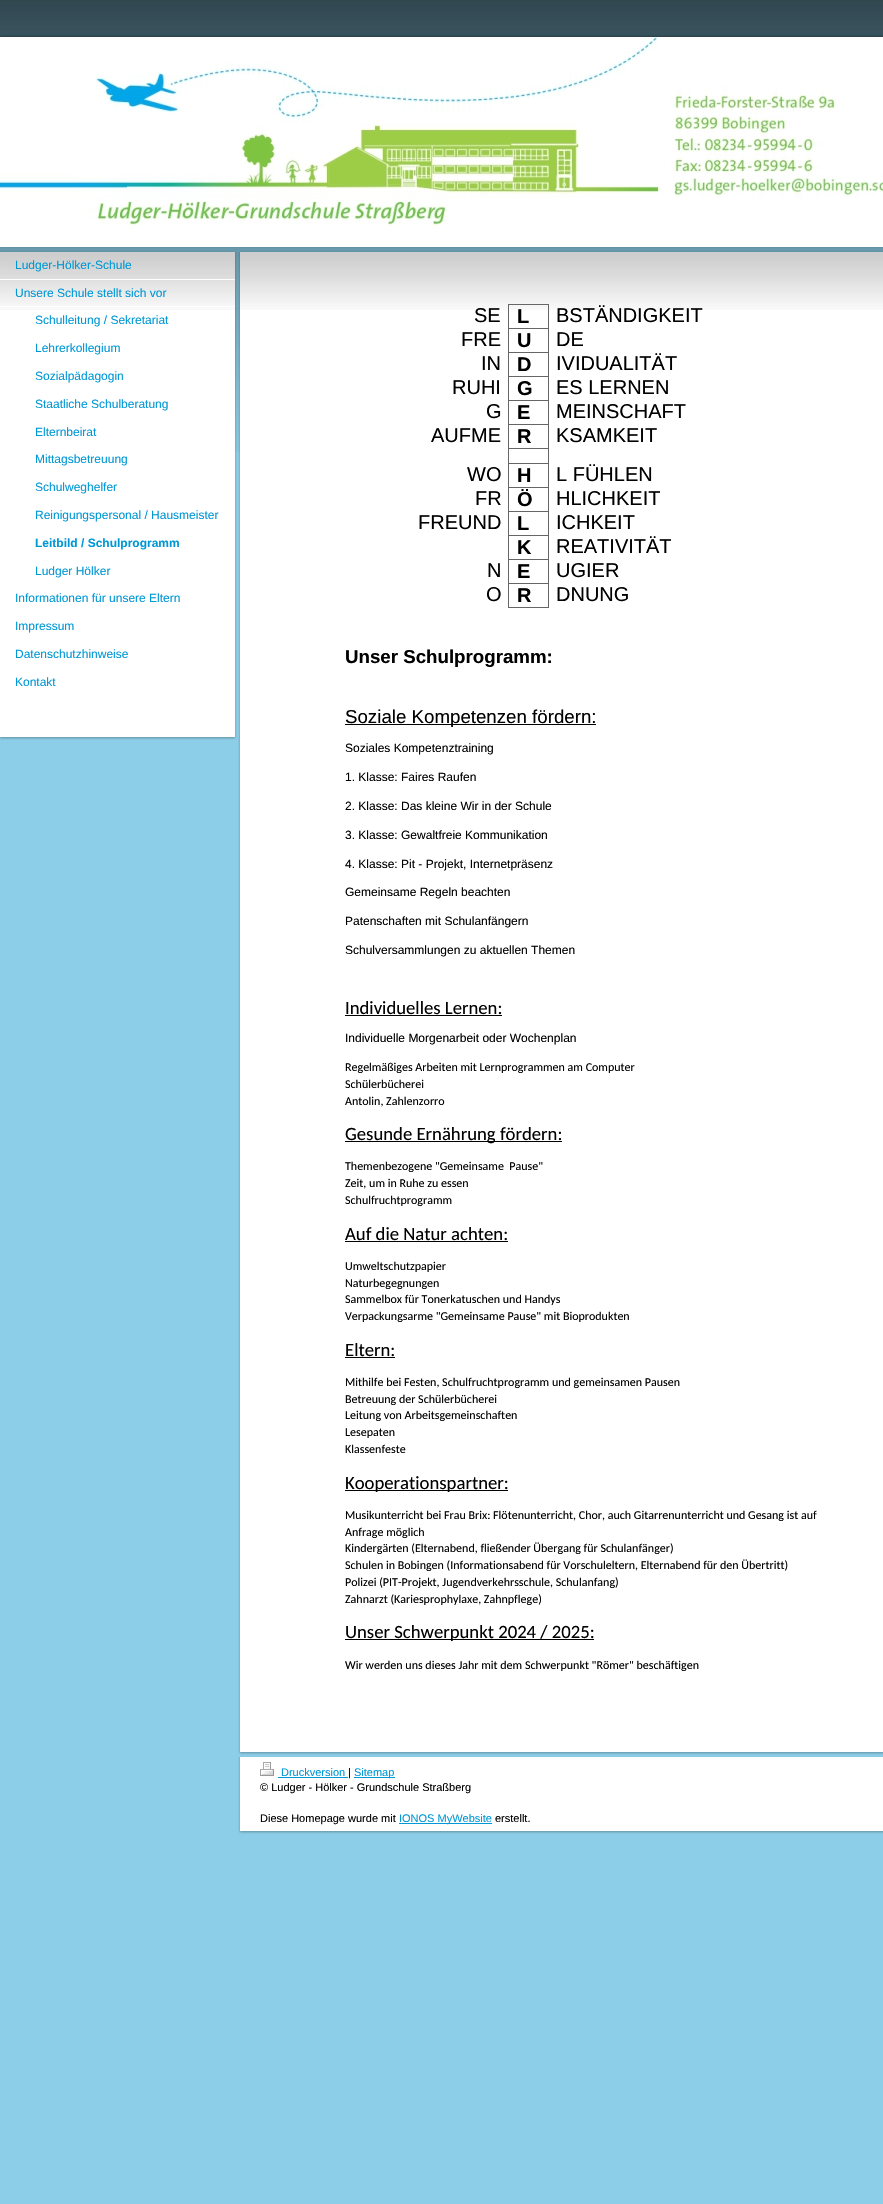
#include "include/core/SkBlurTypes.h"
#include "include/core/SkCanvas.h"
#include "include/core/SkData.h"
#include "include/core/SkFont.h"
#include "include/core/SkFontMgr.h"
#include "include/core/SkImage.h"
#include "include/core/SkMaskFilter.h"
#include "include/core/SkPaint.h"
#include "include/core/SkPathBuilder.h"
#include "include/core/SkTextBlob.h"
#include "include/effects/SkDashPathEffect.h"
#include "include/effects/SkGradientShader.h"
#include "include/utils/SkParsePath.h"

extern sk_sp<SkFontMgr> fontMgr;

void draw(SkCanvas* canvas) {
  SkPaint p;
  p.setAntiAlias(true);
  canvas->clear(SkColorSetRGB(140, 205, 231));
  canvas->drawImageRect(SkImages::DeferredFromEncodedData(SkData::MakeFromFileName("images/1.png")), SkRect::MakeLTRB(0, 0, 883, 452), SkSamplingOptions());
  canvas->drawImageRect(SkImages::DeferredFromEncodedData(SkData::MakeFromFileName("images/2.png")), SkRect::MakeLTRB(0, 35, 883, 248), SkSamplingOptions());
  canvas->drawImageRect(SkImages::DeferredFromEncodedData(SkData::MakeFromFileName("images/3.png")), SkRect::MakeLTRB(0, 37, 883, 247), SkSamplingOptions());
  p.setColor(SkColorSetRGB(101, 148, 167));
  canvas->drawRect(SkRect::MakeLTRB(0, 251, 235, 252), p);
  canvas->drawImageRect(SkImages::DeferredFromEncodedData(SkData::MakeFromFileName("images/4.png")), SkRect::MakeLTRB(0, 737, 237, 740), SkSamplingOptions());
  canvas->drawImageRect(SkImages::DeferredFromEncodedData(SkData::MakeFromFileName("images/5.png")), SkRect::MakeLTRB(235, 252, 237, 737), SkSamplingOptions());
  p.setColor(SK_ColorWHITE);
  canvas->drawRect(SkRect::MakeLTRB(0, 252, 235, 737), p);
  canvas->drawImageRect(SkImages::DeferredFromEncodedData(SkData::MakeFromFileName("images/6.png")), SkRect::MakeLTRB(0, 252, 235, 310), SkSamplingOptions());
  canvas->drawRect(SkRect::MakeLTRB(0, 279, 235, 280), p);
  canvas->drawRect(SkRect::MakeLTRB(0, 306, 235, 307), p);
  p.setColor(SkColorSetRGB(101, 148, 167));
  canvas->drawRect(SkRect::MakeLTRB(240, 251, 883, 252), p);
  canvas->drawImageRect(SkImages::DeferredFromEncodedData(SkData::MakeFromFileName("images/7.png")), SkRect::MakeLTRB(238, 1752, 883, 1755), SkSamplingOptions());
  canvas->drawImageRect(SkImages::DeferredFromEncodedData(SkData::MakeFromFileName("images/8.png")), SkRect::MakeLTRB(238, 252, 240, 1752), SkSamplingOptions());
  p.setColor(SK_ColorWHITE);
  canvas->drawRect(SkRect::MakeLTRB(240, 252, 883, 1752), p);
  canvas->drawImageRect(SkImages::DeferredFromEncodedData(SkData::MakeFromFileName("images/9.png")), SkRect::MakeLTRB(240, 252, 883, 310), SkSamplingOptions());
  p.setColor(SkColorSetRGB(102, 102, 102));
  canvas->drawRect(SkRect::MakeLTRB(508, 304, 549, 305), p);
  canvas->drawRect(SkRect::MakeLTRB(548, 328, 549, 608), p);
  canvas->drawRect(SkRect::MakeLTRB(548, 304, 549, 329), p);
  canvas->drawRect(SkRect::MakeLTRB(508, 607, 549, 608), p);
  canvas->drawRect(SkRect::MakeLTRB(508, 583, 509, 608), p);
  canvas->drawRect(SkRect::MakeLTRB(508, 583, 549, 584), p);
  canvas->drawRect(SkRect::MakeLTRB(508, 559, 509, 584), p);
  canvas->drawRect(SkRect::MakeLTRB(508, 559, 549, 560), p);
  canvas->drawRect(SkRect::MakeLTRB(508, 535, 509, 560), p);
  canvas->drawRect(SkRect::MakeLTRB(508, 535, 549, 536), p);
  canvas->drawRect(SkRect::MakeLTRB(508, 511, 509, 536), p);
  canvas->drawRect(SkRect::MakeLTRB(508, 511, 549, 512), p);
  canvas->drawRect(SkRect::MakeLTRB(508, 487, 509, 512), p);
  canvas->drawRect(SkRect::MakeLTRB(508, 487, 549, 488), p);
  canvas->drawRect(SkRect::MakeLTRB(508, 463, 509, 488), p);
  canvas->drawRect(SkRect::MakeLTRB(508, 463, 549, 464), p);
  canvas->drawRect(SkRect::MakeLTRB(508, 448, 509, 464), p);
  canvas->drawRect(SkRect::MakeLTRB(508, 448, 549, 449), p);
  canvas->drawRect(SkRect::MakeLTRB(508, 424, 509, 449), p);
  canvas->drawRect(SkRect::MakeLTRB(508, 424, 549, 425), p);
  canvas->drawRect(SkRect::MakeLTRB(508, 400, 509, 425), p);
  canvas->drawRect(SkRect::MakeLTRB(508, 400, 549, 401), p);
  canvas->drawRect(SkRect::MakeLTRB(508, 376, 509, 401), p);
  canvas->drawRect(SkRect::MakeLTRB(508, 376, 549, 377), p);
  canvas->drawRect(SkRect::MakeLTRB(508, 352, 509, 377), p);
  canvas->drawRect(SkRect::MakeLTRB(508, 352, 549, 353), p);
  canvas->drawRect(SkRect::MakeLTRB(508, 328, 509, 353), p);
  canvas->drawRect(SkRect::MakeLTRB(508, 328, 549, 329), p);
  canvas->drawRect(SkRect::MakeLTRB(508, 304, 509, 329), p);
  p.setColor(SK_ColorBLACK);
  canvas->drawRect(SkRect::MakeLTRB(345, 724, 596, 725), p);
  canvas->drawRect(SkRect::MakeLTRB(345, 1015, 502, 1016), p);
  canvas->drawRect(SkRect::MakeLTRB(345, 1141, 562, 1142), p);
  canvas->drawRect(SkRect::MakeLTRB(345, 1241, 508, 1242), p);
  canvas->drawRect(SkRect::MakeLTRB(345, 1357, 395, 1358), p);
  canvas->drawRect(SkRect::MakeLTRB(345, 1490, 508, 1491), p);
  canvas->drawRect(SkRect::MakeLTRB(345, 1639, 594, 1640), p);
  p.setColor(SkColorSetRGB(136, 199, 224));
  canvas->drawRect(SkRect::MakeLTRB(240, 1756, 883, 1757), p);
  canvas->drawImageRect(SkImages::DeferredFromEncodedData(SkData::MakeFromFileName("images/7.png")), SkRect::MakeLTRB(238, 1831, 883, 1834), SkSamplingOptions());
  canvas->drawImageRect(SkImages::DeferredFromEncodedData(SkData::MakeFromFileName("images/10.png")), SkRect::MakeLTRB(238, 1757, 240, 1831), SkSamplingOptions());
  p.setColor(SK_ColorWHITE);
  canvas->drawRect(SkRect::MakeLTRB(240, 1757, 883, 1831), p);
  canvas->drawImageRect(SkImages::DeferredFromEncodedData(SkData::MakeFromFileName("images/11.png")), SkRect::MakeLTRB(260, 1762, 274, 1776), SkSamplingOptions());
  p.setColor(SkColorSetRGB(0, 152, 213));
  canvas->drawRect(SkRect::MakeLTRB(278, 1777, 348, 1778), p);
  canvas->drawRect(SkRect::MakeLTRB(354, 1777, 395, 1778), p);
  canvas->drawRect(SkRect::MakeLTRB(399, 1823, 492, 1824), p);
  SkFont font1(fontMgr->matchFamilyStyle("Liberation Sans", SkFontStyle::Normal()), 12);
  font1.setSubpixel(true);
  canvas->drawString("Ludger-Hölker-Schule", 15, 269, font1, p);
  canvas->drawString("Unsere Schule stellt sich vor", 15, 297, font1, p);
  canvas->drawString("Schulleitung / Sekretariat", 35, 324, font1, p);
  canvas->drawString("Lehrerkollegium", 35, 352, font1, p);
  canvas->drawString("Sozialpädagogin", 35, 380, font1, p);
  canvas->drawString("Staatliche Schulberatung", 35, 408, font1, p);
  canvas->drawString("Elternbeirat", 35, 436, font1, p);
  canvas->drawString("Mittagsbetreuung", 35, 463, font1, p);
  canvas->drawString("Schulweghelfer", 35, 491, font1, p);
  canvas->drawString("Reinigungspersonal / Hausmeister", 35, 519, font1, p);
  SkFont font2(fontMgr->matchFamilyStyle("Liberation Sans", SkFontStyle::Bold()), 12);
  font2.setSubpixel(true);
  canvas->drawString("Leitbild / Schulprogramm", 35, 547, font2, p);
  canvas->drawString("Ludger Hölker", 35, 575, font1, p);
  canvas->drawString("Informationen für unsere Eltern", 15, 602, font1, p);
  canvas->drawString("Impressum", 15, 630, font1, p);
  canvas->drawString("Datenschutzhinweise", 15, 658, font1, p);
  canvas->drawString("Kontakt", 15, 686, font1, p);
  SkFont font3(fontMgr->matchFamilyStyle("Liberation Sans", SkFontStyle::Normal()), 20);
  font3.setSubpixel(true);
  p.setColor(SK_ColorBLACK);
  canvas->drawString("SE", 474, 322, font3, p);
  SkFont font4(fontMgr->matchFamilyStyle("Liberation Sans", SkFontStyle::Bold()), 20);
  font4.setSubpixel(true);
  canvas->drawString("L", 517, 323, font4, p);
  canvas->drawString("BSTÄNDIGKEIT", 556, 322, font3, p);
  canvas->drawString("FRE", 461, 346, font3, p);
  canvas->drawString("U", 517, 347, font4, p);
  canvas->drawString("DE", 556, 346, font3, p);
  canvas->drawString("IN", 481, 370, font3, p);
  canvas->drawString("D", 517, 371, font4, p);
  canvas->drawString("IVIDUALITÄT", 556, 370, font3, p);
  canvas->drawString("RUHI", 452, 394, font3, p);
  canvas->drawString("G", 517, 395, font4, p);
  canvas->drawString("ES LERNEN", 556, 394, font3, p);
  canvas->drawString("G", 486, 418, font3, p);
  canvas->drawString("E", 517, 419, font4, p);
  canvas->drawString("MEINSCHAFT", 556, 418, font3, p);
  canvas->drawString("AUFME", 431, 442, font3, p);
  canvas->drawString("R", 517, 443, font4, p);
  canvas->drawString("KSAMKEIT", 556, 442, font3, p);
  canvas->drawString("WO", 467, 481, font3, p);
  canvas->drawString("H", 517, 482, font4, p);
  canvas->drawString("L FÜHLEN", 556, 481, font3, p);
  canvas->drawString("FR", 475, 505, font3, p);
  canvas->drawString("Ö", 517, 506, font4, p);
  canvas->drawString("HLICHKEIT", 556, 505, font3, p);
  canvas->drawString("FREUND", 418, 529, font3, p);
  canvas->drawString("L", 517, 530, font4, p);
  canvas->drawString("ICHKEIT", 556, 529, font3, p);
  canvas->drawString("K", 517, 554, font4, p);
  canvas->drawString("REATIVITÄT", 556, 553, font3, p);
  canvas->drawString("N", 487, 577, font3, p);
  canvas->drawString("E", 517, 578, font4, p);
  canvas->drawString("UGIER", 556, 577, font3, p);
  canvas->drawString("O", 486, 601, font3, p);
  canvas->drawString("R", 517, 602, font4, p);
  canvas->drawString("DNUNG", 556, 601, font3, p);
  SkFont font5(fontMgr->matchFamilyStyle("Liberation Sans", SkFontStyle::Bold()), 18.7f);
  font5.setSubpixel(true);
  canvas->drawString("Unser Schulprogramm:", 345, 663, font5, p);
  SkFont font6(fontMgr->matchFamilyStyle("Liberation Sans", SkFontStyle::Normal()), 18.7f);
  font6.setSubpixel(true);
  canvas->drawString("Soziale Kompetenzen fördern:", 345, 723, font6, p);
  canvas->drawString("Soziales Kompetenztraining", 345, 752, font1, p);
  canvas->drawString("1. Klasse: Faires Raufen", 345, 781, font1, p);
  canvas->drawString("2. Klasse: Das kleine Wir in der Schule", 345, 810, font1, p);
  canvas->drawString("3. Klasse: Gewaltfreie Kommunikation", 345, 839, font1, p);
  canvas->drawString("4. Klasse: Pit - Projekt, Internetpräsenz", 345, 868, font1, p);
  canvas->drawString("Gemeinsame Regeln beachten", 345, 896, font1, p);
  canvas->drawString("Patenschaften mit Schulanfängern", 345, 925, font1, p);
  canvas->drawString("Schulversammlungen zu aktuellen Themen", 345, 954, font1, p);
  SkFont font7(fontMgr->matchFamilyStyle("Carlito", SkFontStyle::Normal()), 18.7f);
  font7.setSubpixel(true);
  canvas->drawString("Individuelles Lernen:", 345, 1014, font7, p);
  canvas->drawString("Individuelle Morgenarbeit oder Wochenplan", 345, 1042, font1, p);
  SkFont font8(fontMgr->matchFamilyStyle("Carlito", SkFontStyle::Normal()), 12);
  font8.setSubpixel(true);
  canvas->drawString("Regelmäßiges Arbeiten mit Lernprogrammen am Computer", 345, 1071, font8, p);
  canvas->drawString("Schülerbücherei", 345, 1088, font8, p);
  canvas->drawString("Antolin, Zahlenzorro", 345, 1105, font8, p);
  canvas->drawString("Gesunde Ernährung fördern:", 345, 1140, font7, p);
  canvas->drawString("Themenbezogene \"Gemeinsame  Pause\"", 345, 1170, font8, p);
  canvas->drawString("Zeit, um in Ruhe zu essen", 345, 1187, font8, p);
  canvas->drawString("Schulfruchtprogramm", 345, 1204, font8, p);
  canvas->drawString("Auf die Natur achten:", 345, 1240, font7, p);
  canvas->drawString("Umweltschutzpapier", 345, 1270, font8, p);
  canvas->drawString("Naturbegegnungen", 345, 1287, font8, p);
  canvas->drawString("Sammelbox für Tonerkatuschen und Handys", 345, 1303, font8, p);
  canvas->drawString("Verpackungsarme \"Gemeinsame Pause\" mit Bioprodukten", 345, 1320, font8, p);
  canvas->drawString("Eltern:", 345, 1356, font7, p);
  canvas->drawString("Mithilfe bei Festen, Schulfruchtprogramm und gemeinsamen Pausen", 345, 1386, font8, p);
  canvas->drawString("Betreuung der Schülerbücherei", 345, 1403, font8, p);
  canvas->drawString("Leitung von Arbeitsgemeinschaften", 345, 1419, font8, p);
  canvas->drawString("Lesepaten", 345, 1436, font8, p);
  canvas->drawString("Klassenfeste", 345, 1453, font8, p);
  canvas->drawString("Kooperationspartner:", 345, 1489, font7, p);
  canvas->drawString("Musikunterricht bei Frau Brix: Flötenunterricht, Chor, auch Gitarrenunterricht und Gesang ist auf", 345, 1519, font8, p);
  canvas->drawString("Anfrage möglich", 345, 1536, font8, p);
  canvas->drawString("Kindergärten (Elternabend, fließender Übergang für Schulanfänger)", 345, 1552, font8, p);
  canvas->drawString("Schulen in Bobingen (Informationsabend für Vorschuleltern, Elternabend für den Übertritt)", 345, 1569, font8, p);
  canvas->drawString("Polizei (PIT-Projekt, Jugendverkehrsschule, Schulanfang)", 345, 1586, font8, p);
  canvas->drawString("Zahnarzt (Kariesprophylaxe, Zahnpflege)", 345, 1603, font8, p);
  canvas->drawString("Unser Schwerpunkt 2024 / 2025:", 345, 1638, font7, p);
  canvas->drawString("Wir werden uns dieses Jahr mit dem Schwerpunkt \"Römer\" beschäftigen", 345, 1669, font8, p);
  SkFont font9(fontMgr->matchFamilyStyle("Liberation Sans", SkFontStyle::Normal()), 11);
  font9.setSubpixel(true);
  p.setColor(SkColorSetRGB(0, 152, 213));
  canvas->drawString("Druckversion", 281, 1776, font9, p);
  p.setColor(SK_ColorBLACK);
  canvas->drawString("|", 348, 1776, font9, p);
  p.setColor(SkColorSetRGB(0, 152, 213));
  canvas->drawString("Sitemap", 354, 1776, font9, p);
  p.setColor(SK_ColorBLACK);
  canvas->drawString("© Ludger - Hölker - Grundschule Straßberg", 260, 1791, font9, p);
  canvas->drawString("Diese Homepage wurde mit", 260, 1822, font9, p);
  p.setColor(SkColorSetRGB(0, 152, 213));
  canvas->drawString("IONOS MyWebsite", 399, 1822, font9, p);
  p.setColor(SK_ColorBLACK);
  canvas->drawString("erstellt.", 495, 1822, font9, p);
}
